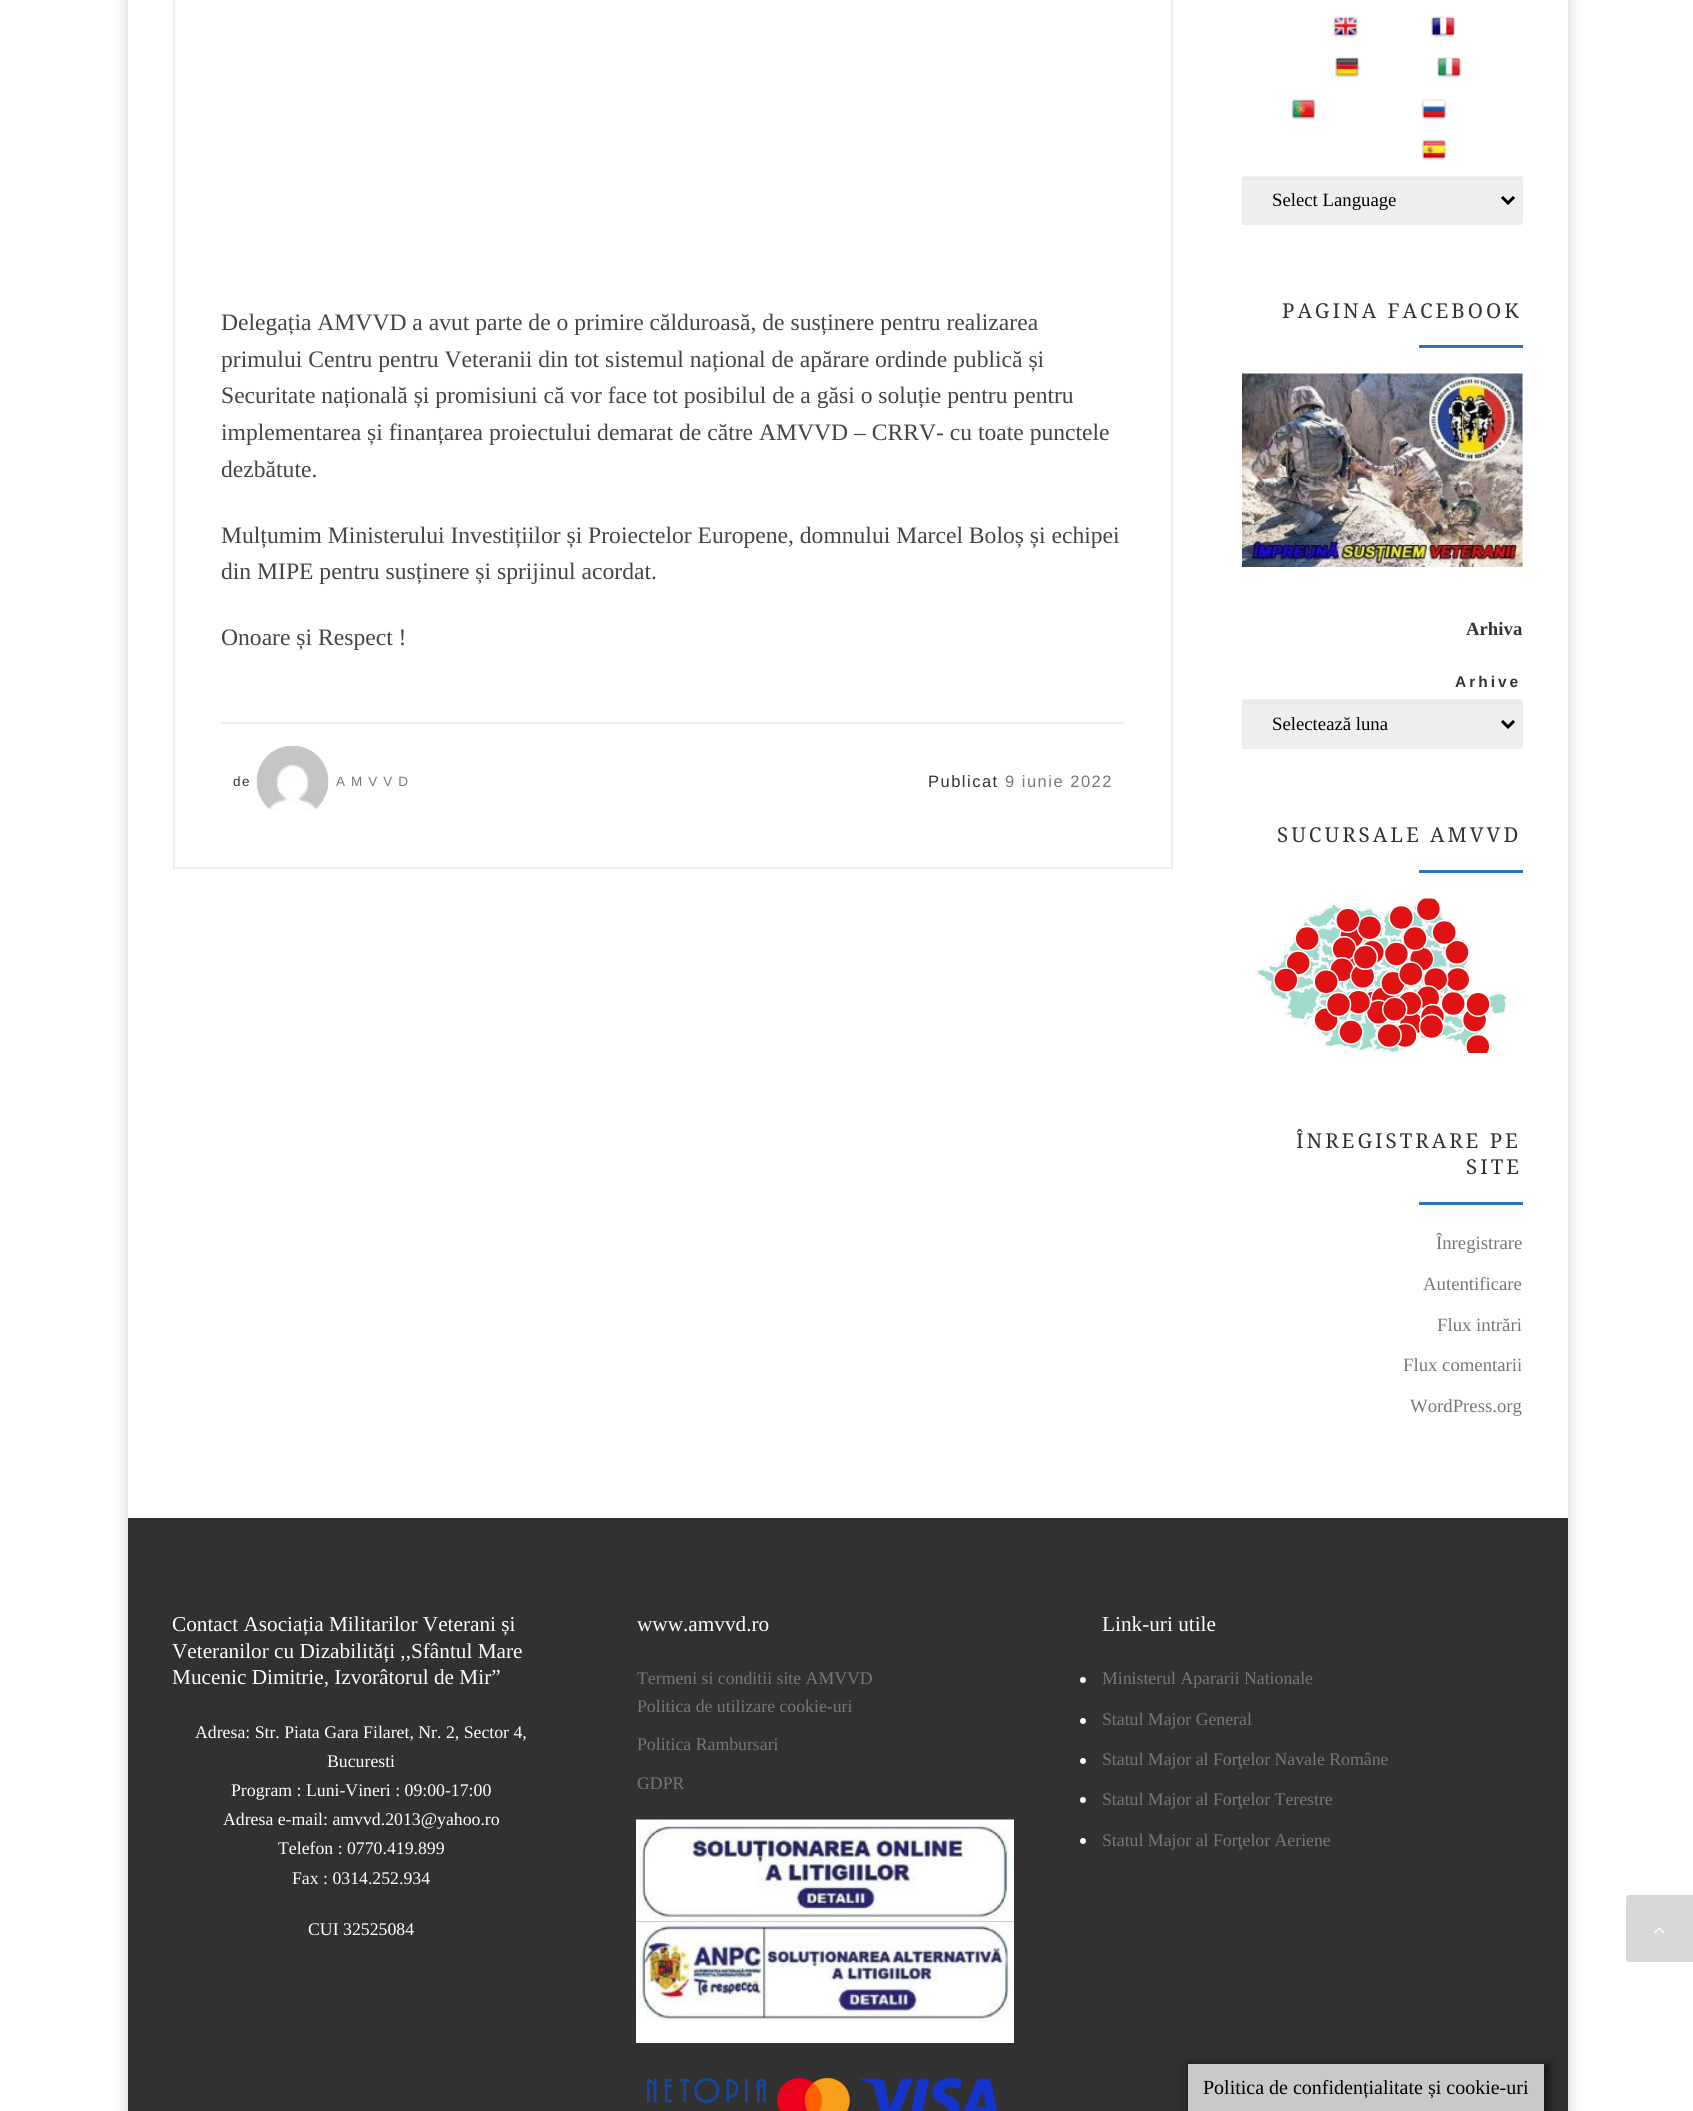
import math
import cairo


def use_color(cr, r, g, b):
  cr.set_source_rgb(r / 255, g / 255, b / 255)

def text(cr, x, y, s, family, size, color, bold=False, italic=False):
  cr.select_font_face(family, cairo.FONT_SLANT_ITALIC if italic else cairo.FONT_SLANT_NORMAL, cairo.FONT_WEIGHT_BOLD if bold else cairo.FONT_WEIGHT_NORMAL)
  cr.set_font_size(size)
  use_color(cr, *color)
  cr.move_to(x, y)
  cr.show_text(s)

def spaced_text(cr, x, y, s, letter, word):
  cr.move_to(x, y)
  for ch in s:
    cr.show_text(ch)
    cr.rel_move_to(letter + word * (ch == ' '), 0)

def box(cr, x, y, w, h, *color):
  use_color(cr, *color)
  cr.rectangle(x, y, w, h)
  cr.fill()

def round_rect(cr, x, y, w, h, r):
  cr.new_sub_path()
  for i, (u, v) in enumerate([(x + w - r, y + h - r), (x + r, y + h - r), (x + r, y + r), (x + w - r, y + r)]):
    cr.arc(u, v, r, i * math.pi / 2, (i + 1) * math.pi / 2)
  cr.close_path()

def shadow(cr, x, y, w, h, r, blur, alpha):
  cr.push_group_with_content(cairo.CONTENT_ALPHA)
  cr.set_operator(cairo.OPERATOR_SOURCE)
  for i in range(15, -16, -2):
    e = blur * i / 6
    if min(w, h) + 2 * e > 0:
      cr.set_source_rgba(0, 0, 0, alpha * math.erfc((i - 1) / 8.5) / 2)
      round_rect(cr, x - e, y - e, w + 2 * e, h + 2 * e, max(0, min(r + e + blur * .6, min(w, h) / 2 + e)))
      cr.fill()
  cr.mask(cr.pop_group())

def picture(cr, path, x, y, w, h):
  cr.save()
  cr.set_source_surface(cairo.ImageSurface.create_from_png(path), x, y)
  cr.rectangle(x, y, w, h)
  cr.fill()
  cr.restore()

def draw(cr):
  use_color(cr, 255, 255, 255)
  cr.paint()
  use_color(cr, 0, 0, 0)
  shadow(cr, 128, -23, 1440, 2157, 0, 7.5, 0.2)
  box(cr, 128, 0, 1440, 1518, 255, 255, 255)
  box(cr, 221, 722, 903, 2, 236, 238, 239)
  cr.rectangle(174, -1, 998, 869)
  use_color(cr, 239, 239, 239)
  cr.stroke()
  picture(cr, "img_01.png", 256, 745, 73, 68)
  picture(cr, "img_02.png", 1333, 16, 25, 22)
  picture(cr, "img_03.png", 1431, 16, 25, 22)
  picture(cr, "img_04.png", 1335, 57, 25, 21)
  picture(cr, "img_05.png", 1437, 57, 25, 21)
  picture(cr, "img_06.png", 1291, 99, 25, 21)
  picture(cr, "img_07.png", 1422, 99, 25, 21)
  picture(cr, "img_08.png", 1422, 139, 25, 22)
  round_rect(cr, 1242, 176, 281, 49, 3)
  cr.fill()
  use_color(cr, 233, 233, 233)
  cr.new_path()
  cr.move_to(1245, 180)
  cr.line_to(1520, 180)
  cr.line_to(1521, 182)
  cr.curve_to(1521, 181, 1522, 177, 1520, 177)
  cr.line_to(1246, 177)
  cr.curve_to(1243, 177, 1244, 181, 1244, 182)
  cr.curve_to(1244, 181, 1244, 180, 1245, 180)
  cr.close_path()
  cr.fill()
  round_rect(cr, 1243, 177, 279, 47, 2)
  use_color(cr, 236, 238, 239)
  cr.stroke()
  cr.new_path()
  cr.move_to(1502, 197)
  cr.line_to(1508, 203)
  cr.line_to(1514, 197)
  use_color(cr, 0, 0, 0)
  cr.set_line_width(3)
  cr.stroke()
  box(cr, 1419, 345, 104, 3, 38, 119, 191)
  picture(cr, "img_09.png", 1242, 373, 281, 194)
  use_color(cr, 239, 239, 239)
  round_rect(cr, 1242, 699, 281, 50, 3)
  cr.fill()
  use_color(cr, 233, 233, 233)
  cr.new_path()
  cr.move_to(1245, 704)
  cr.line_to(1520, 704)
  cr.line_to(1521, 705)
  cr.line_to(1521, 702)
  cr.curve_to(1521, 702, 1520, 701, 1520, 701)
  cr.line_to(1246, 701)
  cr.curve_to(1245, 701, 1244, 702, 1244, 702)
  cr.line_to(1244, 705)
  cr.curve_to(1244, 704, 1244, 704, 1245, 704)
  cr.close_path()
  cr.fill()
  round_rect(cr, 1243, 700, 279, 48, 2)
  use_color(cr, 236, 238, 239)
  cr.set_line_width(2)
  cr.stroke()
  cr.new_path()
  cr.move_to(1502, 721)
  cr.line_to(1508, 727)
  cr.line_to(1514, 721)
  use_color(cr, 0, 0, 0)
  cr.set_line_width(3)
  cr.stroke()
  box(cr, 1419, 870, 104, 3, 38, 119, 191)
  picture(cr, "img_10.png", 1254, 898, 256, 155)
  box(cr, 1419, 1202, 104, 3, 38, 119, 191)
  box(cr, 128, 1518, 1440, 593, 49, 49, 49)
  picture(cr, "img_11.png", 636, 1819, 378, 103)
  picture(cr, "img_12.png", 636, 1921, 378, 122)
  picture(cr, "img_13.png", 647, 2078, 351, 33)
  use_color(cr, 255, 255, 255)
  cr.arc(1083, 1680, 3, 0, 2 * math.pi)
  cr.fill()
  cr.arc(1083, 1721, 3, 0, 2 * math.pi)
  cr.fill()
  cr.arc(1083, 1761, 3, 0, 2 * math.pi)
  cr.fill()
  cr.arc(1083, 1800, 3, 0, 2 * math.pi)
  cr.fill()
  cr.arc(1083, 1841, 3, 0, 2 * math.pi)
  cr.fill()
  use_color(cr, 216, 216, 216)
  round_rect(cr, 1626, 1895, 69, 67, 3)
  cr.fill()
  picture(cr, "img_14.png", 1654, 1927, 11, 7)
  use_color(cr, 22, 22, 22)
  shadow(cr, 1188, 2064, 362, 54, 0, 4, 1)
  box(cr, 1188, 2064, 356, 47, 201, 201, 201)
  text(cr, 221, 330, "Delegația AMVVD a avut parte de o primire călduroasă, de susținere pentru realizarea", "Liberation Serif", 23.6, (68, 68, 68))
  text(cr, 221, 367, "primului Centru pentru Veteranii din tot sistemul național de apărare ordinde publică și", "Liberation Serif", 23.6, (68, 68, 68))
  text(cr, 221, 403, "Securitate națională și promisiuni că vor face tot posibilul de a găsi o soluție pentru pentru", "Liberation Serif", 23.6, (68, 68, 68))
  text(cr, 221, 440, "implementarea și finanțarea proiectului demarat de către AMVVD – CRRV- cu toate punctele", "Liberation Serif", 23.6, (68, 68, 68))
  text(cr, 221, 477, "dezbătute.", "Liberation Serif", 23.6, (68, 68, 68))
  text(cr, 221, 543, "Mulțumim Ministerului Investițiilor și Proiectelor Europene, domnului Marcel Boloș și echipei", "Liberation Serif", 23.6, (68, 68, 68))
  text(cr, 221, 579, "din MIPE pentru susținere și sprijinul acordat.", "Liberation Serif", 23.6, (68, 68, 68))
  text(cr, 221, 645, "Onoare și Respect !", "Liberation Serif", 23.6, (68, 68, 68))
  cr.select_font_face("Liberation Sans")
  cr.set_font_size(13.5)
  use_color(cr, 51, 51, 51)
  spaced_text(cr, 233, 786, "de", 1.5, 0)
  use_color(cr, 119, 119, 119)
  spaced_text(cr, 336, 786, "AMVVD", 6, 0)
  cr.set_font_size(16.5)
  use_color(cr, 51, 51, 51)
  spaced_text(cr, 928, 787, "Publicat", 1.5, 0)
  use_color(cr, 119, 119, 119)
  spaced_text(cr, 1005, 787, "9 iunie 2022", 1.5, 0)
  text(cr, 1272, 206, "Select Language", "Liberation Serif", 18.75, (0, 0, 0))
  cr.select_font_face("Noto Serif")
  cr.set_font_size(20.5)
  use_color(cr, 51, 51, 51)
  spaced_text(cr, 1282, 318, "PAGINA FACEBOOK", 3, 0)
  text(cr, 1466, 635, "Arhiva", "Liberation Serif", 18.75, (51, 51, 51), bold=True)
  cr.select_font_face("Liberation Sans", cairo.FONT_SLANT_NORMAL, cairo.FONT_WEIGHT_BOLD)
  cr.set_font_size(15.5)
  spaced_text(cr, 1455, 687, "Arhive", 3, 0)
  text(cr, 1272, 730, "Selectează luna", "Liberation Serif", 18.75, (0, 0, 0))
  cr.select_font_face("Noto Serif")
  cr.set_font_size(20.5)
  use_color(cr, 51, 51, 51)
  spaced_text(cr, 1277, 842, "SUCURSALE AMVVD", 3, 0)
  spaced_text(cr, 1296, 1148, "ÎNREGISTRARE PE", 3, 0)
  spaced_text(cr, 1466, 1174, "SITE", 3, 0)
  text(cr, 1436, 1249, "Înregistrare", "Liberation Serif", 18.75, (119, 119, 119))
  text(cr, 1423, 1290, "Autentificare", "Liberation Serif", 18.75, (119, 119, 119))
  text(cr, 1437, 1331, "Flux intrări", "Liberation Serif", 18.75, (119, 119, 119))
  text(cr, 1403, 1371, "Flux comentarii", "Liberation Serif", 18.75, (119, 119, 119))
  text(cr, 1410, 1412, "WordPress.org", "Liberation Serif", 18.75, (119, 119, 119))
  text(cr, 172, 1631, "Contact Asociația Militarilor Veterani și", "Liberation Serif", 21.25, (255, 255, 255))
  text(cr, 172, 1658, "Veteranilor cu Dizabilități ,,Sfântul Mare", "Liberation Serif", 21.25, (255, 255, 255))
  text(cr, 172, 1684, "Mucenic Dimitrie, Izvorâtorul de Mir”", "Liberation Serif", 21.25, (255, 255, 255))
  text(cr, 195, 1738, "Adresa: Str. Piata Gara Filaret, Nr. 2, Sector 4,", "Liberation Serif", 17.75, (255, 255, 255))
  text(cr, 327, 1767, "Bucuresti", "Liberation Serif", 17.75, (255, 255, 255))
  text(cr, 231, 1796, "Program : Luni-Vineri : 09:00-17:00", "Liberation Serif", 17.75, (255, 255, 255))
  text(cr, 223, 1825, "Adresa e-mail: amvvd.2013@yahoo.ro", "Liberation Serif", 17.75, (255, 255, 255))
  text(cr, 278, 1854, "Telefon : 0770.419.899", "Liberation Serif", 17.75, (255, 255, 255))
  text(cr, 292, 1884, "Fax : 0314.252.934", "Liberation Serif", 17.75, (255, 255, 255))
  text(cr, 308, 1935, "CUI 32525084", "Liberation Serif", 17.75, (255, 255, 255))
  text(cr, 637, 1631, "www.amvvd.ro", "Liberation Serif", 21.25, (255, 255, 255))
  text(cr, 637, 1684, "Termeni si conditii site AMVVD", "Liberation Serif", 17.75, (119, 119, 119))
  text(cr, 637, 1712, "Politica de utilizare cookie-uri", "Liberation Serif", 17.75, (119, 119, 119))
  text(cr, 637, 1750, "Politica Rambursari", "Liberation Serif", 17.75, (119, 119, 119))
  text(cr, 637, 1789, "GDPR", "Liberation Serif", 17.75, (119, 119, 119))
  text(cr, 1102, 1631, "Link-uri utile", "Liberation Serif", 21.25, (255, 255, 255))
  text(cr, 1102, 1684, "Ministerul Apararii Nationale", "Liberation Serif", 17.75, (119, 119, 119))
  text(cr, 1102, 1725, "Statul Major General", "Liberation Serif", 17.75, (119, 119, 119))
  text(cr, 1102, 1765, "Statul Major al Forţelor Navale Române", "Liberation Serif", 17.75, (119, 119, 119))
  text(cr, 1102, 1805, "Statul Major al Forţelor Terestre", "Liberation Serif", 17.75, (119, 119, 119))
  text(cr, 1102, 1846, "Statul Major al Forţelor Aeriene", "Liberation Serif", 17.75, (119, 119, 119))
  text(cr, 1203, 2094, "Politica de confidențialitate și cookie-uri", "Liberation Serif", 20, (0, 0, 0))


surface = cairo.ImageSurface(cairo.FORMAT_RGB24, 1693, 2111)
cr = cairo.Context(surface)
options = cairo.FontOptions()
options.set_hint_metrics(cairo.HINT_METRICS_OFF)
options.set_hint_style(cairo.HINT_STYLE_NONE)
cr.set_font_options(options)
cr.set_miter_limit(4)
draw(cr)
surface.write_to_png("out.png")
